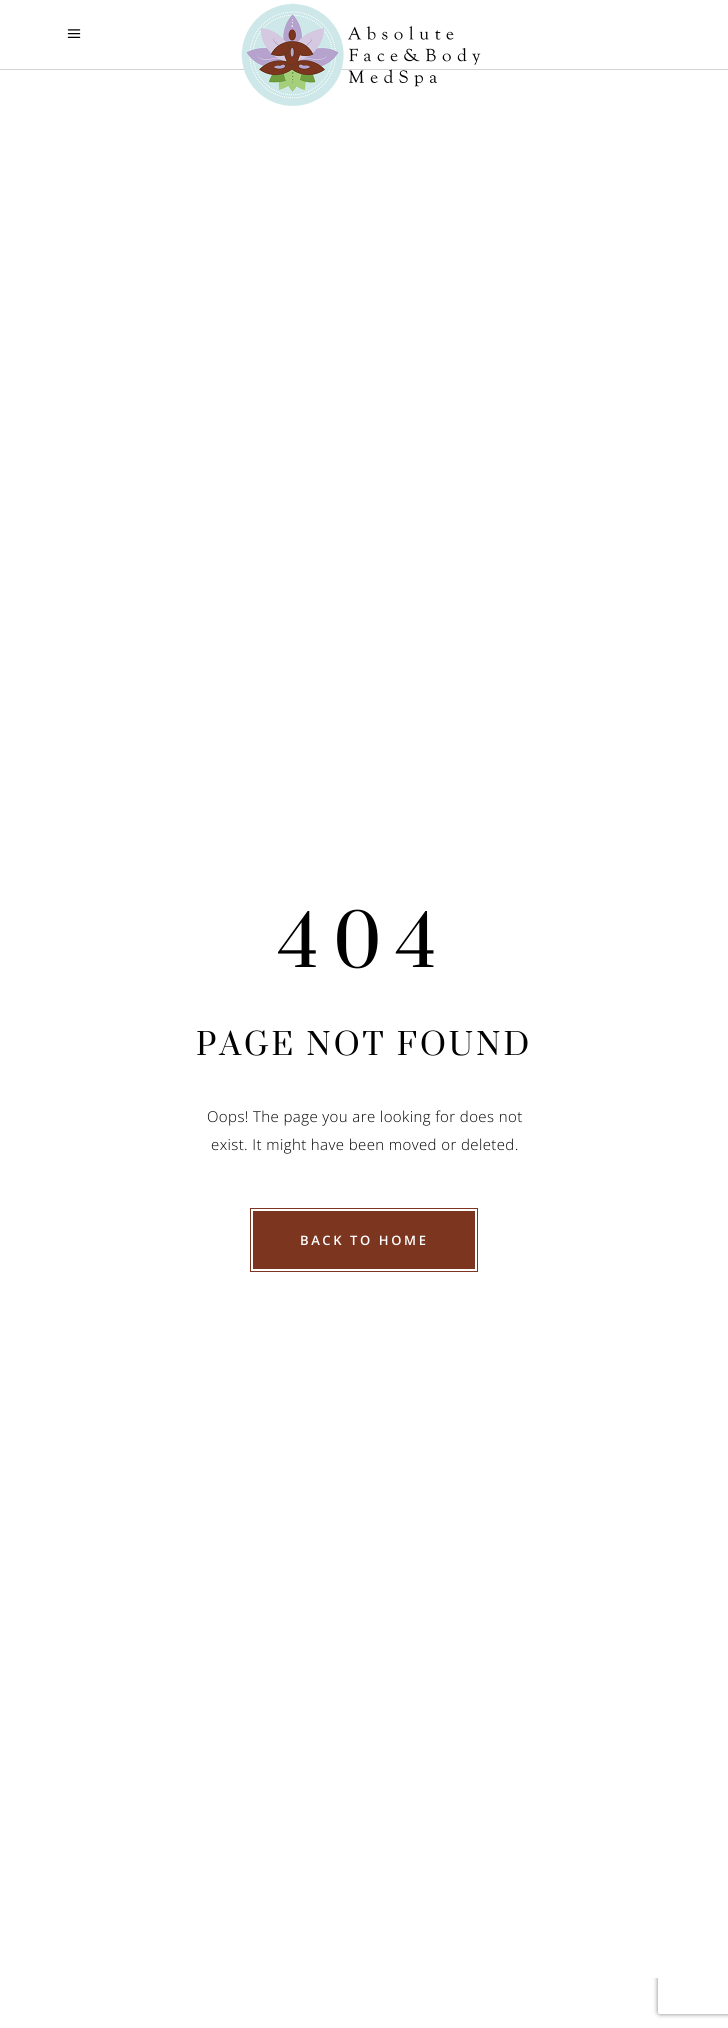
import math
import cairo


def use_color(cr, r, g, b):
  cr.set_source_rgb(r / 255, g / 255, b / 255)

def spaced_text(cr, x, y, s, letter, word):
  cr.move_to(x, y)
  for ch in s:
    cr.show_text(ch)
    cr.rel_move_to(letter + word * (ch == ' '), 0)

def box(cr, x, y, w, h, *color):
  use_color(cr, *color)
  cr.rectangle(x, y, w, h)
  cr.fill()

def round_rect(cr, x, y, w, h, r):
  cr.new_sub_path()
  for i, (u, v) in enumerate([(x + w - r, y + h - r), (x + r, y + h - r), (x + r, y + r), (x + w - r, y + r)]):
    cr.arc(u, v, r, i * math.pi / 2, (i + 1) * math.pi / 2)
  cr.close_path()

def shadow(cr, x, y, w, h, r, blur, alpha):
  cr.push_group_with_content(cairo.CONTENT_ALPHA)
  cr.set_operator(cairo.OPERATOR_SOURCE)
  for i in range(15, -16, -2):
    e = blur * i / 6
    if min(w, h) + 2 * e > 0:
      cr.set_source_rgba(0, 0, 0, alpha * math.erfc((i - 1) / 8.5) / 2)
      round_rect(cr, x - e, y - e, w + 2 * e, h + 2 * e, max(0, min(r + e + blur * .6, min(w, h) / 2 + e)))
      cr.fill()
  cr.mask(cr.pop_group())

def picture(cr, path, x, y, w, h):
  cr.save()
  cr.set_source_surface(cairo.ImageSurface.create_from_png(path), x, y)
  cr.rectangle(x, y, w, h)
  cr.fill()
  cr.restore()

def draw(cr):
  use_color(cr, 255, 255, 255)
  cr.paint()
  box(cr, 0, 69, 728, 1, 209, 211, 212)
  picture(cr, "img_01.png", 67, 29, 14, 9)
  picture(cr, "img_02.png", 241, 3, 240, 103)
  cr.save()
  cr.set_fill_rule(cairo.FILL_RULE_EVEN_ODD)
  cr.new_path()
  cr.move_to(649, 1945)
  cr.line_to(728, 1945)
  cr.line_to(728, 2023)
  cr.line_to(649, 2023)
  cr.close_path()
  cr.move_to(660, 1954)
  cr.line_to(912, 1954)
  cr.curve_to(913, 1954, 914, 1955, 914, 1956)
  cr.line_to(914, 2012)
  cr.curve_to(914, 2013, 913, 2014, 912, 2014)
  cr.line_to(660, 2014)
  cr.curve_to(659, 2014, 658, 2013, 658, 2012)
  cr.line_to(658, 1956)
  cr.curve_to(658, 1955, 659, 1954, 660, 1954)
  cr.close_path()
  cr.clip()
  use_color(cr, 128, 128, 128)
  shadow(cr, 658, 1954, 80, 60, 2, 2.5, 1)
  cr.restore()
  box(cr, 653, 1949, 75, 29, 255, 255, 255)
  box(cr, 253, 1211, 222, 58, 124, 53, 31)
  box(cr, 250, 1208, 228, 1, 124, 53, 31)
  box(cr, 477, 1208, 1, 64, 124, 53, 31)
  box(cr, 250, 1271, 228, 1, 124, 53, 31)
  box(cr, 250, 1208, 1, 64, 124, 53, 31)
  cr.select_font_face("Prata")
  cr.set_font_size(70)
  use_color(cr, 0, 0, 0)
  spaced_text(cr, 278, 967, "404", 14, 0)
  cr.set_font_size(30)
  spaced_text(cr, 196, 1055, "PAGE NOT FOUND", 3, 0)
  cr.select_font_face("Open Sans Light")
  cr.set_font_size(15)
  spaced_text(cr, 207, 1122, "Oops! The page you are looking for does not", 0.4, 0)
  spaced_text(cr, 211, 1150, "exist. It might have been moved or deleted.", 0.4, 0)
  cr.select_font_face("Open Sans SemiBold")
  cr.set_font_size(13)
  use_color(cr, 255, 255, 255)
  spaced_text(cr, 300, 1245, "BACK TO HOME", 2.6, 0)


surface = cairo.ImageSurface(cairo.FORMAT_RGB24, 728, 2028)
cr = cairo.Context(surface)
options = cairo.FontOptions()
options.set_hint_metrics(cairo.HINT_METRICS_OFF)
options.set_hint_style(cairo.HINT_STYLE_NONE)
cr.set_font_options(options)
cr.set_miter_limit(4)
draw(cr)
surface.write_to_png("out.png")
